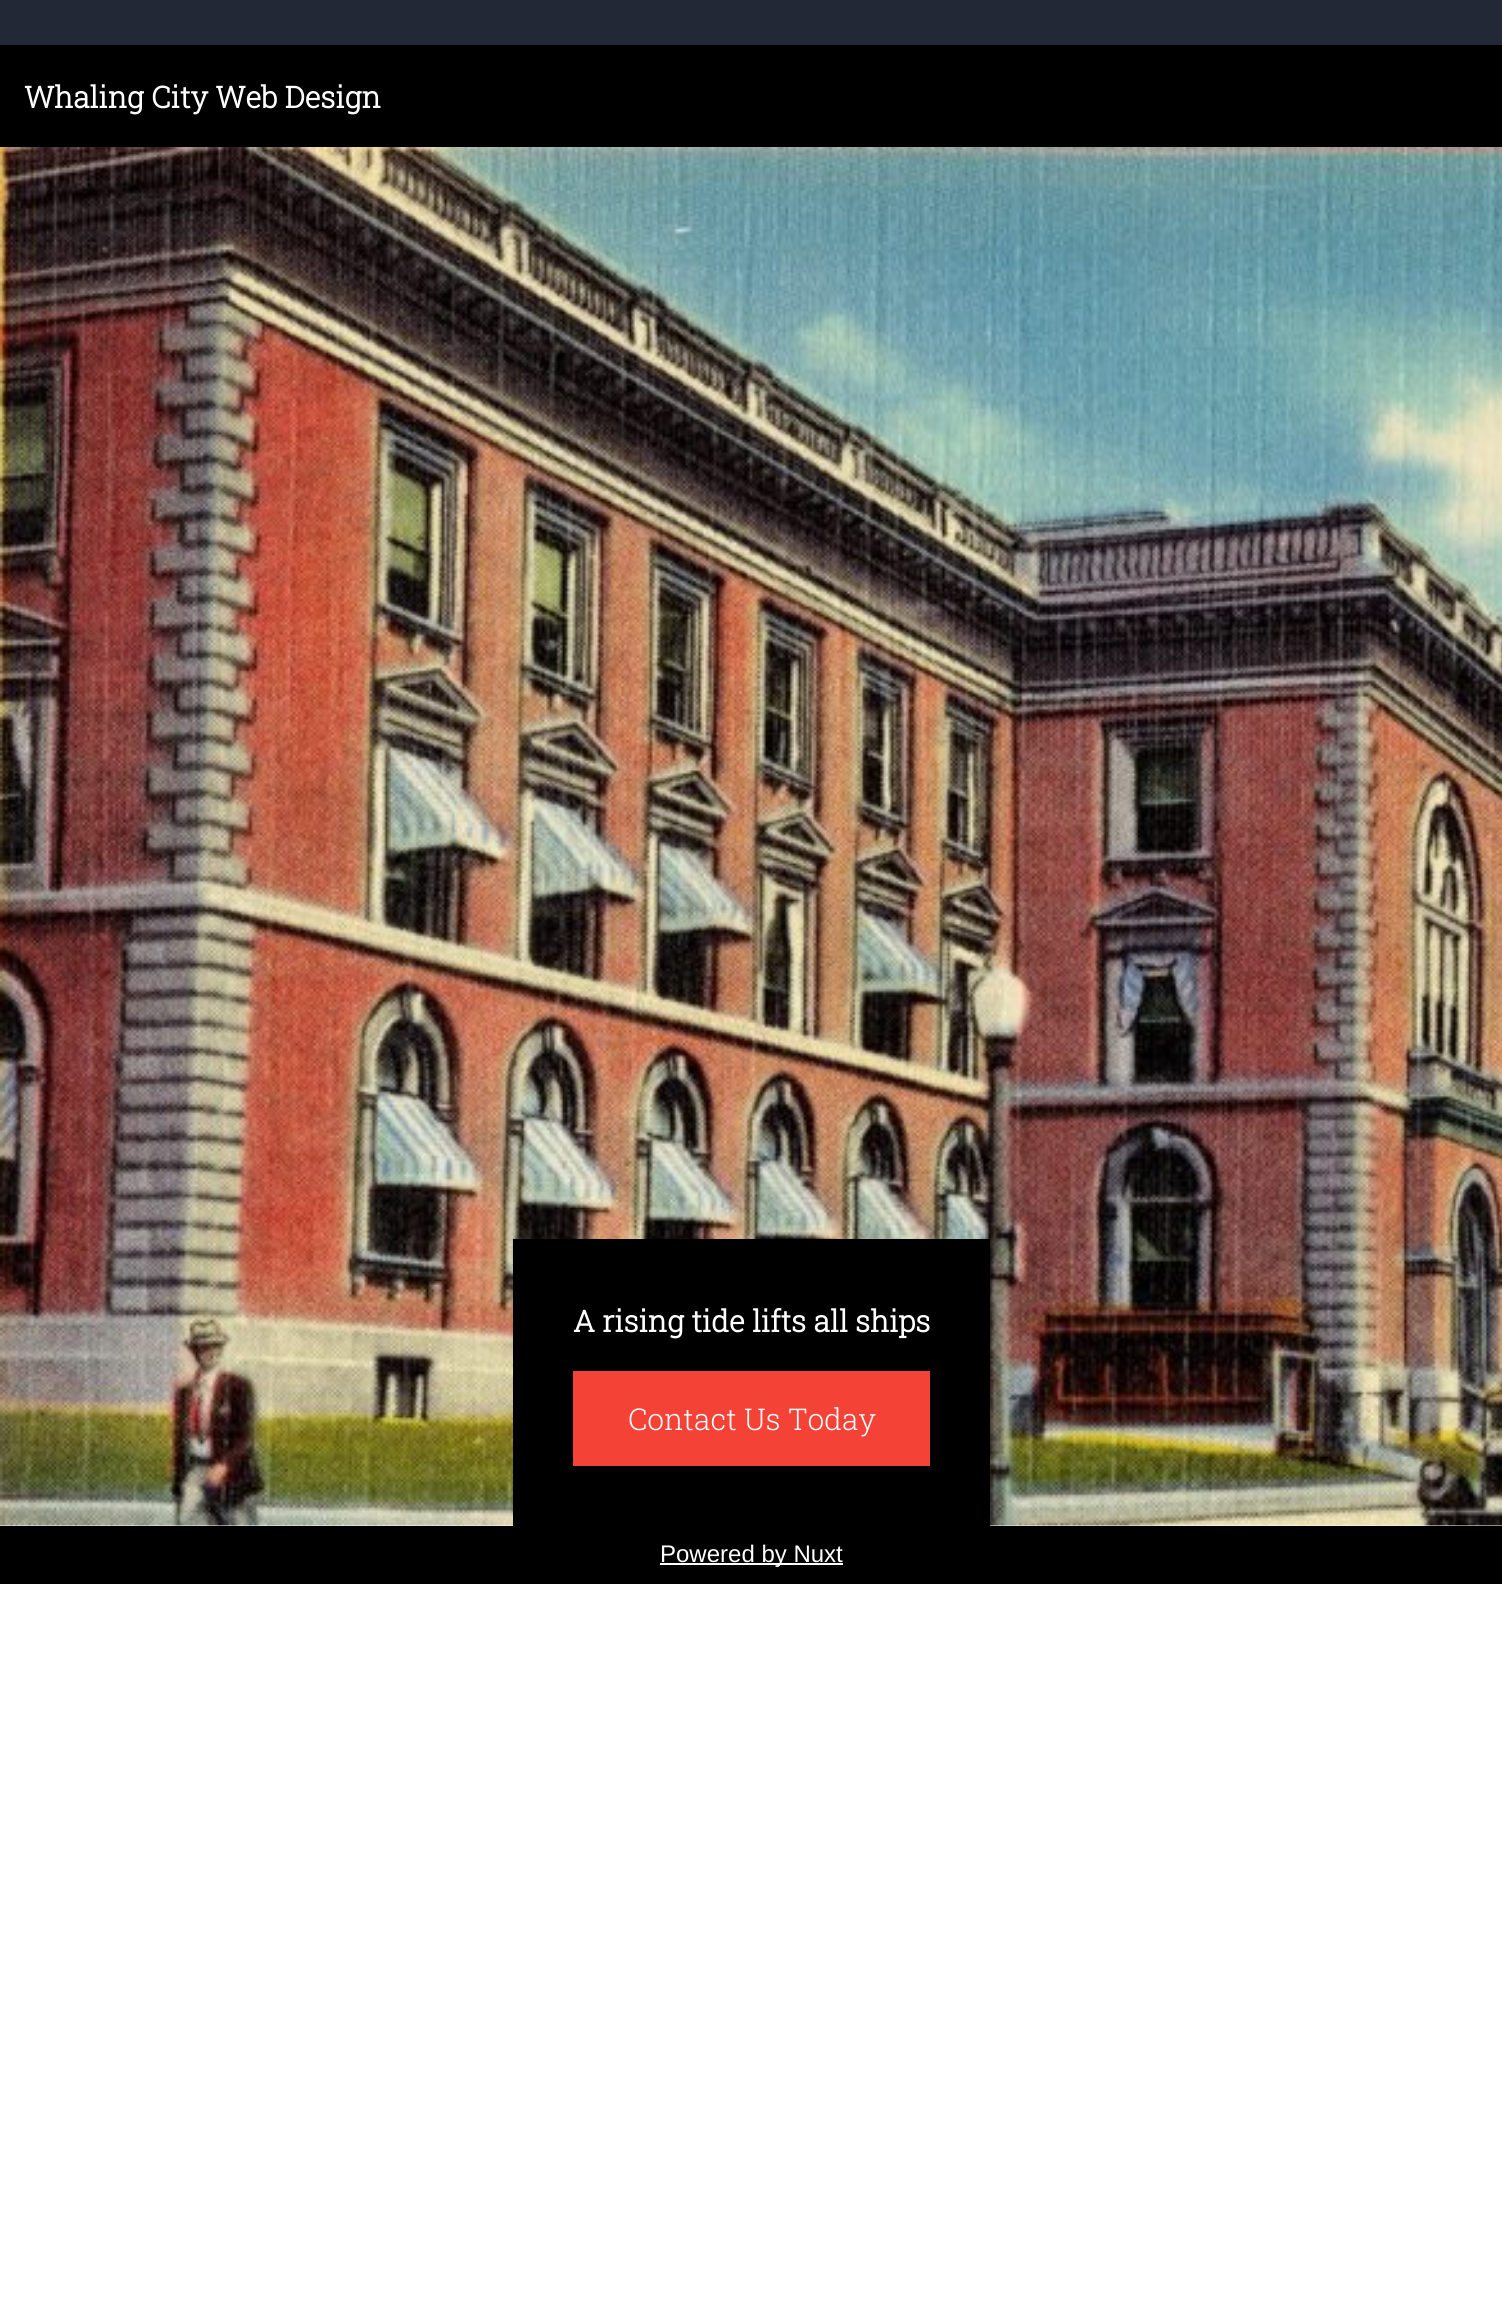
import math
import cairo


def use_color(cr, r, g, b):
  cr.set_source_rgb(r / 255, g / 255, b / 255)

def text(cr, x, y, s, family, size, color, bold=False, italic=False):
  cr.select_font_face(family, cairo.FONT_SLANT_ITALIC if italic else cairo.FONT_SLANT_NORMAL, cairo.FONT_WEIGHT_BOLD if bold else cairo.FONT_WEIGHT_NORMAL)
  cr.set_font_size(size)
  use_color(cr, *color)
  cr.move_to(x, y)
  cr.show_text(s)

def box(cr, x, y, w, h, *color):
  use_color(cr, *color)
  cr.rectangle(x, y, w, h)
  cr.fill()

def picture(cr, path, x, y, w, h):
  cr.save()
  cr.set_source_surface(cairo.ImageSurface.create_from_png(path), x, y)
  cr.rectangle(x, y, w, h)
  cr.fill()
  cr.restore()

def draw(cr):
  use_color(cr, 255, 255, 255)
  cr.paint()
  box(cr, 0, 0, 1502, 45, 35, 40, 55)
  box(cr, 0, 45, 1502, 102, 0, 0, 0)
  picture(cr, "img_01.png", 0, 147, 1502, 1379)
  box(cr, 513, 1239, 477, 287, 0, 0, 0)
  box(cr, 573, 1371, 357, 95, 244, 67, 54)
  box(cr, 0, 1526, 1502, 58, 0, 0, 0)
  box(cr, 660, 1563, 183, 2, 255, 255, 255)
  text(cr, 24, 108, "Whaling City Web Design", "Roboto Slab", 30, (255, 255, 255), bold=True)
  text(cr, 573, 1332, "A rising tide lifts all ships", "Roboto Slab", 30, (255, 255, 255), bold=True)
  text(cr, 628, 1430, "Contact Us Today", "Roboto Slab Light", 30, (255, 255, 255))
  text(cr, 660, 1562, "Powered by Nuxt", "Liberation Sans", 24, (255, 255, 255))


surface = cairo.ImageSurface(cairo.FORMAT_RGB24, 1502, 2297)
cr = cairo.Context(surface)
options = cairo.FontOptions()
options.set_hint_metrics(cairo.HINT_METRICS_OFF)
options.set_hint_style(cairo.HINT_STYLE_NONE)
cr.set_font_options(options)
cr.set_miter_limit(4)
draw(cr)
surface.write_to_png("out.png")
